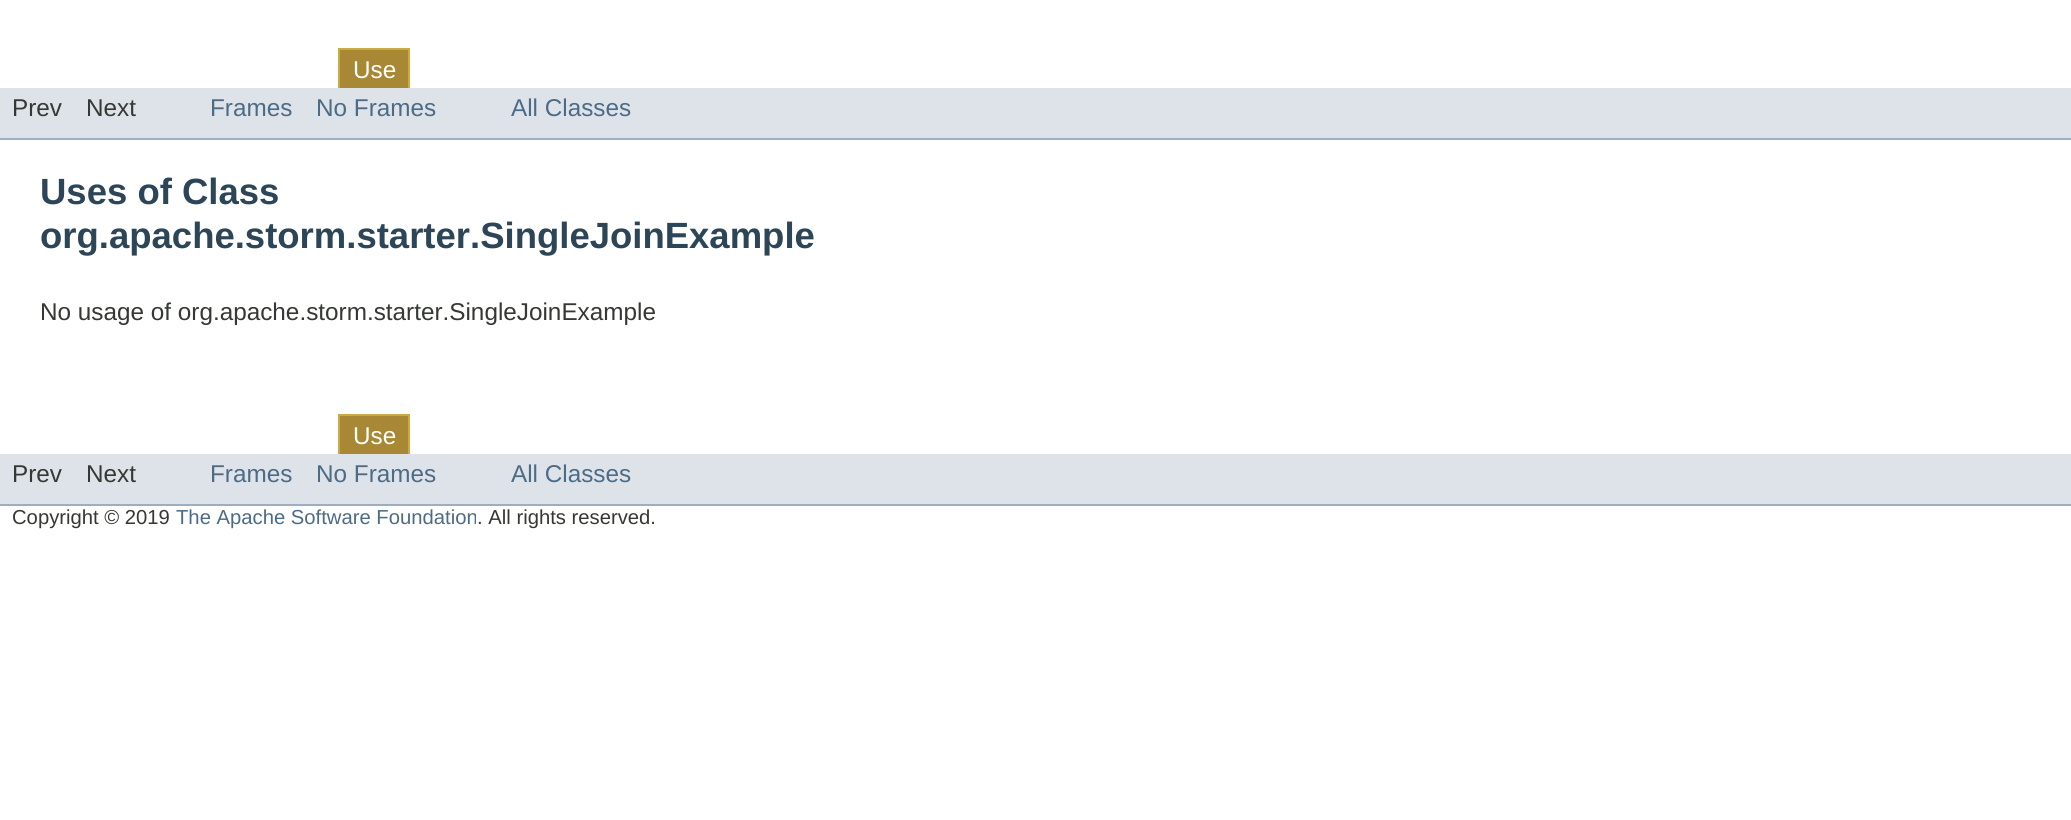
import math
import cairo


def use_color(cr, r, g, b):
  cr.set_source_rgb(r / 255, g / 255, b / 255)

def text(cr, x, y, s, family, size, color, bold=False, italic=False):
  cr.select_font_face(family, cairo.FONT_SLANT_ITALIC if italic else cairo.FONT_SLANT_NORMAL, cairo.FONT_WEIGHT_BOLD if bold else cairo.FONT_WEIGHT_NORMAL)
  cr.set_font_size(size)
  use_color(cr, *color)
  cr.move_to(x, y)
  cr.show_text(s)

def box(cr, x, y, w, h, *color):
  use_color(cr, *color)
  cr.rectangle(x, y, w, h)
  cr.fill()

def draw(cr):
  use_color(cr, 255, 255, 255)
  cr.paint()
  box(cr, 340, 50, 68, 38, 168, 136, 52)
  cr.rectangle(339, 49, 70, 42)
  use_color(cr, 201, 170, 68)
  cr.stroke()
  box(cr, 0, 88, 2071, 50, 222, 227, 233)
  box(cr, 0, 138, 2071, 2, 158, 173, 192)
  box(cr, 340, 416, 68, 38, 168, 136, 52)
  cr.rectangle(339, 415, 70, 42)
  use_color(cr, 201, 170, 68)
  cr.stroke()
  box(cr, 0, 454, 2071, 50, 222, 227, 233)
  box(cr, 0, 504, 2071, 2, 158, 173, 192)
  text(cr, 353, 78, "Use", "Liberation Sans", 24.3, (255, 255, 255))
  text(cr, 12, 116, "Prev", "Liberation Sans", 24.3, (53, 56, 51))
  text(cr, 86, 116, "Next", "Liberation Sans", 24.3, (53, 56, 51))
  text(cr, 210, 116, "Frames", "Liberation Sans", 24.3, (76, 107, 135))
  text(cr, 316, 116, "No Frames", "Liberation Sans", 24.3, (76, 107, 135))
  text(cr, 511, 116, "All Classes", "Liberation Sans", 24.3, (76, 107, 135))
  text(cr, 40, 204, "Uses of Class", "Liberation Sans", 36.5, (44, 69, 87), bold=True)
  text(cr, 40, 248, "org.apache.storm.starter.SingleJoinExample", "Liberation Sans", 36.5, (44, 69, 87), bold=True)
  text(cr, 40, 320, "No usage of org.apache.storm.starter.SingleJoinExample", "Liberation Sans", 24.3, (53, 56, 51))
  text(cr, 353, 444, "Use", "Liberation Sans", 24.3, (255, 255, 255))
  text(cr, 12, 482, "Prev", "Liberation Sans", 24.3, (53, 56, 51))
  text(cr, 86, 482, "Next", "Liberation Sans", 24.3, (53, 56, 51))
  text(cr, 210, 482, "Frames", "Liberation Sans", 24.3, (76, 107, 135))
  text(cr, 316, 482, "No Frames", "Liberation Sans", 24.3, (76, 107, 135))
  text(cr, 511, 482, "All Classes", "Liberation Sans", 24.3, (76, 107, 135))
  text(cr, 12, 524, "Copyright © 2019", "Liberation Sans", 20.25, (53, 56, 51))
  text(cr, 176, 524, "The Apache Software Foundation", "Liberation Sans", 20.25, (76, 107, 135))
  text(cr, 477, 524, ". All rights reserved.", "Liberation Sans", 20.25, (53, 56, 51))


surface = cairo.ImageSurface(cairo.FORMAT_RGB24, 2071, 820)
cr = cairo.Context(surface)
options = cairo.FontOptions()
options.set_hint_metrics(cairo.HINT_METRICS_OFF)
options.set_hint_style(cairo.HINT_STYLE_NONE)
cr.set_font_options(options)
cr.set_miter_limit(4)
draw(cr)
surface.write_to_png("out.png")
